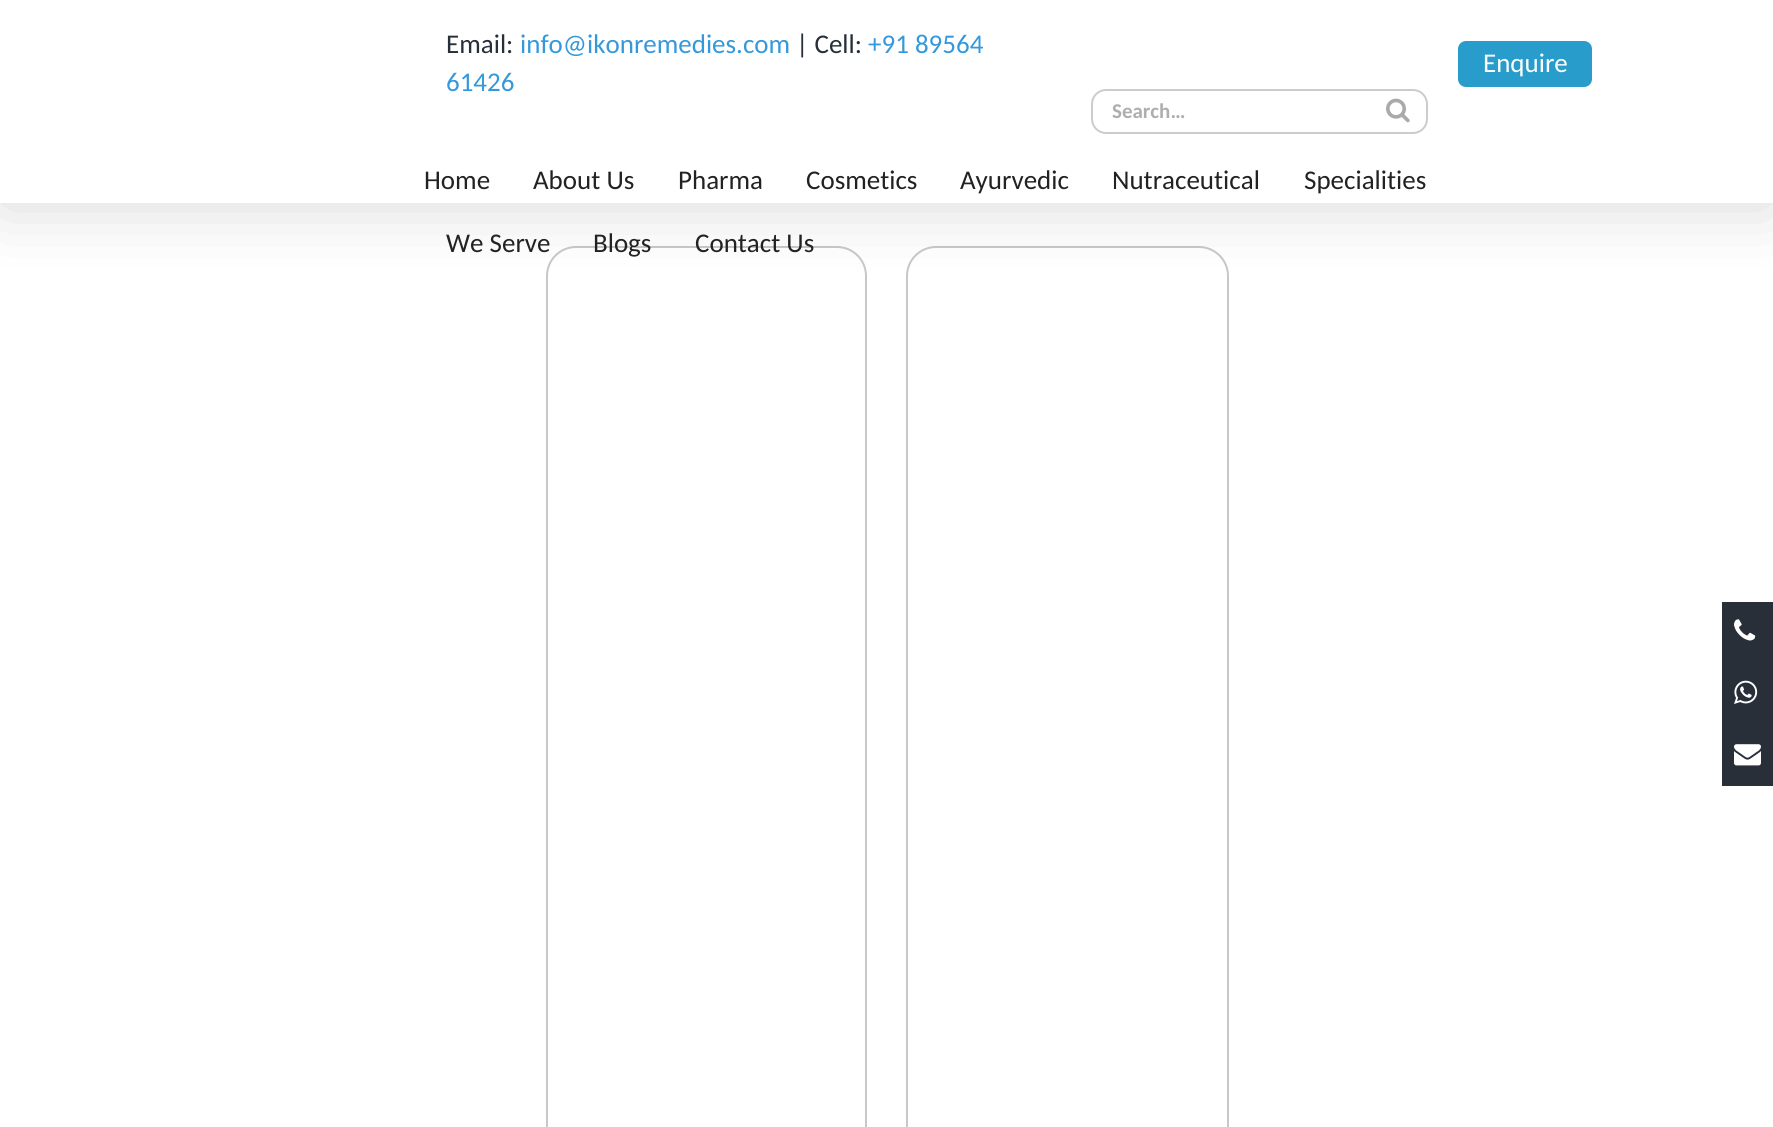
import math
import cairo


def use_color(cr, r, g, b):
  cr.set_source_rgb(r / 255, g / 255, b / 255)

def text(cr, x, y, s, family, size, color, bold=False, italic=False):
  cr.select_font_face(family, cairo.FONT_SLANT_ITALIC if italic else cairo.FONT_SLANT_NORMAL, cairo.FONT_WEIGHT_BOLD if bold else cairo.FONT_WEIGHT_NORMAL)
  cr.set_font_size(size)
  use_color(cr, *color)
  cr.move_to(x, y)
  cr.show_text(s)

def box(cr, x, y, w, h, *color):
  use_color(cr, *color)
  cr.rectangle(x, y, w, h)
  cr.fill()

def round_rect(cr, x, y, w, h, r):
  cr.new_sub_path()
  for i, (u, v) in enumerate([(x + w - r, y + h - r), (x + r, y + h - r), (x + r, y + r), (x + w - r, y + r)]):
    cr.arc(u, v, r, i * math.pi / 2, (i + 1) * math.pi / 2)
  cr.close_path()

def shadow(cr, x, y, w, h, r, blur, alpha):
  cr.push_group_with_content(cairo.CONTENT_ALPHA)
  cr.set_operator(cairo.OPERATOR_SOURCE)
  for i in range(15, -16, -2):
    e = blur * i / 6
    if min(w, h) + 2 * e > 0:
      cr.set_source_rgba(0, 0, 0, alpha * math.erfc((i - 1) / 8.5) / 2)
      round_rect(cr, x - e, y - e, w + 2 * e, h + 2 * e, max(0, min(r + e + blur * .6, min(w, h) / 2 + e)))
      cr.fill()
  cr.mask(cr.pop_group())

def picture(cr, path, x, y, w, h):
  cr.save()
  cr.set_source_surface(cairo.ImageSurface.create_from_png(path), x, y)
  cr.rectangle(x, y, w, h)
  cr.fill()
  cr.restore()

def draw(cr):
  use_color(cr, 255, 255, 255)
  cr.paint()
  round_rect(cr, 547, 247, 319, 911, 29)
  use_color(cr, 200, 200, 200)
  cr.stroke()
  round_rect(cr, 907, 247, 321, 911, 29)
  cr.stroke()
  use_color(cr, 0, 0, 0)
  shadow(cr, 0, 5, 1773, 202, 0, 34, 0.15)
  box(cr, 0, 0, 1773, 203, 255, 255, 255)
  use_color(cr, 40, 157, 204)
  round_rect(cr, 1459, 42, 132, 44, 7)
  cr.fill_preserve()
  cr.stroke()
  round_rect(cr, 1092, 90, 335, 43, 14)
  use_color(cr, 204, 204, 204)
  cr.stroke()
  picture(cr, "img_01.png", 1386, 98, 24, 25)
  box(cr, 1722, 602, 51, 184, 40, 47, 57)
  picture(cr, "img_02.png", 1734, 619, 22, 22)
  picture(cr, "img_03.png", 1734, 680, 24, 24)
  picture(cr, "img_04.png", 1734, 744, 27, 22)
  text(cr, 446, 53, "Email:", "Carlito", 27, (40, 47, 57))
  text(cr, 520, 53, "info@ikonremedies.com", "Carlito", 27, (52, 152, 219))
  text(cr, 796, 53, "| Cell:", "Carlito", 27, (40, 47, 57))
  text(cr, 868, 53, "+91 89564", "Carlito", 27, (52, 152, 219))
  text(cr, 446, 91, "61426", "Carlito", 27, (52, 152, 219))
  text(cr, 1483, 72, "Enquire", "Carlito", 27, (255, 255, 255))
  text(cr, 1112, 118, "Search…", "Carlito", 21, (174, 174, 174), bold=True)
  text(cr, 424, 189, "Home", "Carlito", 27, (34, 34, 34))
  text(cr, 533, 189, "About Us", "Carlito", 27, (34, 34, 34))
  text(cr, 678, 189, "Pharma", "Carlito", 27, (34, 34, 34))
  text(cr, 806, 189, "Cosmetics", "Carlito", 27, (34, 34, 34))
  text(cr, 960, 189, "Ayurvedic", "Carlito", 27, (34, 34, 34))
  text(cr, 1112, 189, "Nutraceutical", "Carlito", 27, (34, 34, 34))
  text(cr, 1304, 189, "Specialities", "Carlito", 27, (34, 34, 34))
  text(cr, 446, 252, "We Serve", "Carlito", 27, (34, 34, 34))
  text(cr, 593, 252, "Blogs", "Carlito", 27, (34, 34, 34))
  text(cr, 695, 252, "Contact Us", "Carlito", 27, (34, 34, 34))


surface = cairo.ImageSurface(cairo.FORMAT_RGB24, 1773, 1127)
cr = cairo.Context(surface)
options = cairo.FontOptions()
options.set_hint_metrics(cairo.HINT_METRICS_OFF)
options.set_hint_style(cairo.HINT_STYLE_NONE)
cr.set_font_options(options)
cr.set_miter_limit(4)
draw(cr)
surface.write_to_png("out.png")
